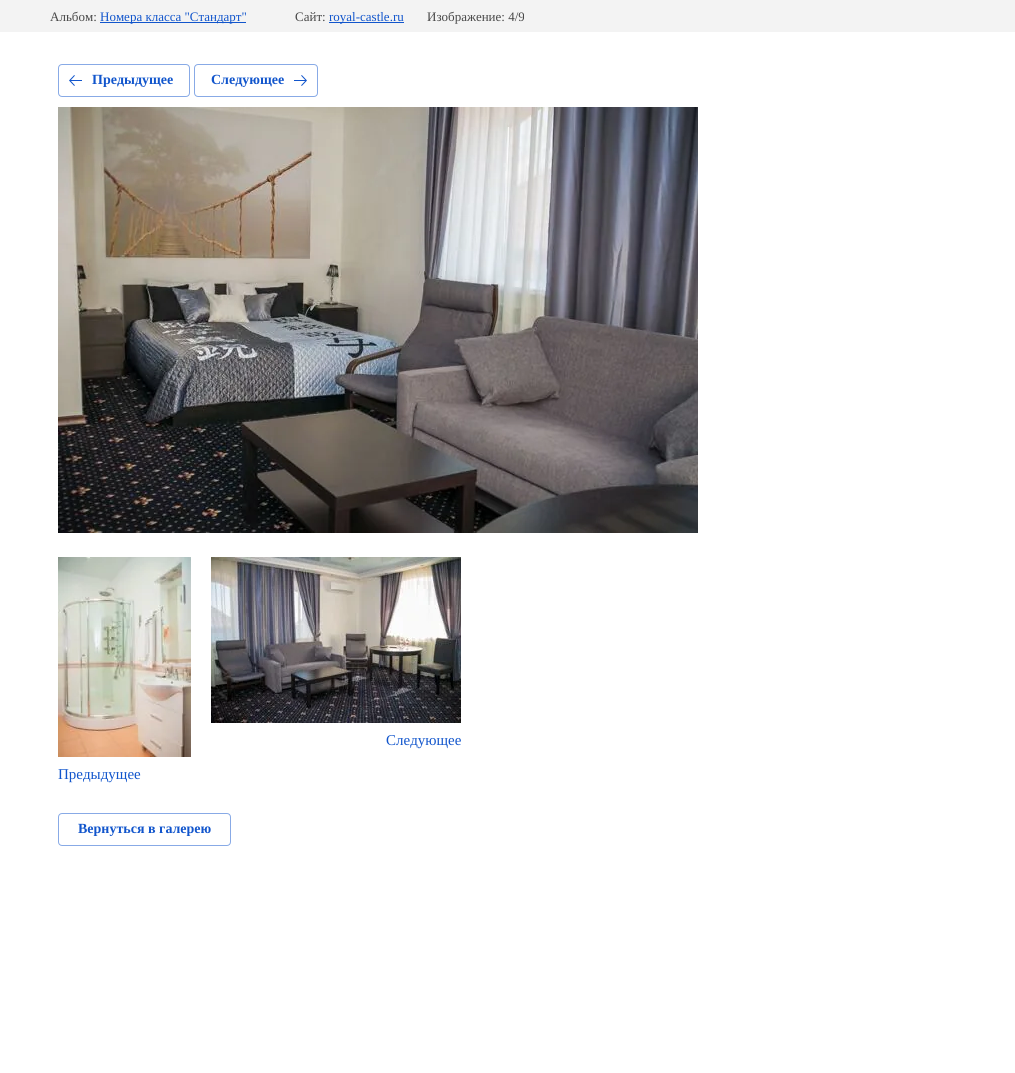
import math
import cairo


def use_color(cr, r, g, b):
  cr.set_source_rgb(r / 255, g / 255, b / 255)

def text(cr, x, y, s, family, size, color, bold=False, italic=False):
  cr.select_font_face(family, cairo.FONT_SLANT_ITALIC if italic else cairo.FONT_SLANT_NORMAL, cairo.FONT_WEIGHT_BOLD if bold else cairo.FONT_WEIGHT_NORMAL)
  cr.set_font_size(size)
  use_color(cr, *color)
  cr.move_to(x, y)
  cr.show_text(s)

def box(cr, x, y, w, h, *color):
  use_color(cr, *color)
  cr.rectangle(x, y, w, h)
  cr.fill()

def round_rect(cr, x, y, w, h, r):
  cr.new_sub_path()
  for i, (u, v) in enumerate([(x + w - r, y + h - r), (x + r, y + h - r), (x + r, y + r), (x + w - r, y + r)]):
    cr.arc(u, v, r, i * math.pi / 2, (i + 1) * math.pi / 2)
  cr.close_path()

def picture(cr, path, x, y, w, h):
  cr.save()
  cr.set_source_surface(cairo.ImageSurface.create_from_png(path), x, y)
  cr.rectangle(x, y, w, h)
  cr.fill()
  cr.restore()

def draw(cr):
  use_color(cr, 255, 255, 255)
  cr.paint()
  box(cr, 0, 0, 1015, 32, 243, 243, 243)
  box(cr, 100, 22, 146, 1, 17, 85, 204)
  box(cr, 329, 22, 75, 1, 17, 85, 204)
  round_rect(cr, 58.5, 64.5, 131, 32, 3.5)
  use_color(cr, 136, 170, 230)
  cr.set_line_width(1)
  cr.stroke()
  picture(cr, "img_01.png", 69, 75, 13, 11)
  round_rect(cr, 194.5, 64.5, 123, 32, 3.5)
  cr.stroke()
  picture(cr, "img_02.png", 294, 75, 13, 11)
  picture(cr, "img_03.png", 58, 107, 640, 426)
  picture(cr, "img_04.png", 211, 557, 250, 166)
  picture(cr, "img_05.png", 58, 557, 133, 200)
  round_rect(cr, 58.5, 813.5, 172, 32, 3.5)
  cr.stroke()
  text(cr, 50, 21, "Альбом:", "Liberation Serif", 13, (72, 72, 72))
  text(cr, 100, 21, "Номера класса \"Стандарт\"", "Liberation Serif", 13, (17, 85, 204))
  text(cr, 295, 21, "Сайт:", "Liberation Serif", 13, (72, 72, 72))
  text(cr, 329, 21, "royal-castle.ru", "Liberation Serif", 13, (17, 85, 204))
  text(cr, 427, 21, "Изображение: 4/9", "Liberation Serif", 13, (72, 72, 72))
  text(cr, 92, 84, "Предыдущее", "Liberation Serif", 14, (17, 85, 204), bold=True)
  text(cr, 211, 84, "Следующее", "Liberation Serif", 14, (17, 85, 204), bold=True)
  text(cr, 386, 745, "Следующее", "Liberation Serif", 15, (17, 85, 204))
  text(cr, 58, 779, "Предыдущее", "Liberation Serif", 15, (17, 85, 204))
  text(cr, 78, 833, "Вернуться в галерею", "Liberation Serif", 14, (17, 85, 204), bold=True)


surface = cairo.ImageSurface(cairo.FORMAT_RGB24, 1015, 1073)
cr = cairo.Context(surface)
options = cairo.FontOptions()
options.set_hint_metrics(cairo.HINT_METRICS_OFF)
options.set_hint_style(cairo.HINT_STYLE_NONE)
cr.set_font_options(options)
cr.set_miter_limit(4)
draw(cr)
surface.write_to_png("out.png")
